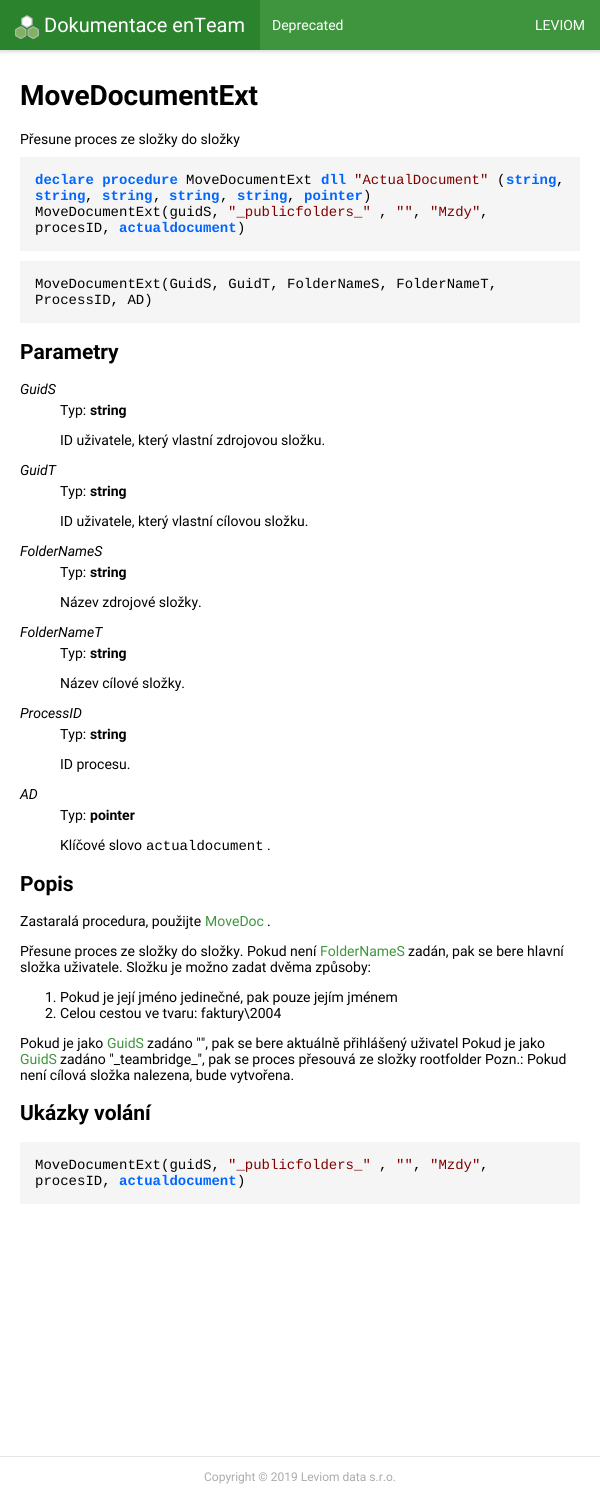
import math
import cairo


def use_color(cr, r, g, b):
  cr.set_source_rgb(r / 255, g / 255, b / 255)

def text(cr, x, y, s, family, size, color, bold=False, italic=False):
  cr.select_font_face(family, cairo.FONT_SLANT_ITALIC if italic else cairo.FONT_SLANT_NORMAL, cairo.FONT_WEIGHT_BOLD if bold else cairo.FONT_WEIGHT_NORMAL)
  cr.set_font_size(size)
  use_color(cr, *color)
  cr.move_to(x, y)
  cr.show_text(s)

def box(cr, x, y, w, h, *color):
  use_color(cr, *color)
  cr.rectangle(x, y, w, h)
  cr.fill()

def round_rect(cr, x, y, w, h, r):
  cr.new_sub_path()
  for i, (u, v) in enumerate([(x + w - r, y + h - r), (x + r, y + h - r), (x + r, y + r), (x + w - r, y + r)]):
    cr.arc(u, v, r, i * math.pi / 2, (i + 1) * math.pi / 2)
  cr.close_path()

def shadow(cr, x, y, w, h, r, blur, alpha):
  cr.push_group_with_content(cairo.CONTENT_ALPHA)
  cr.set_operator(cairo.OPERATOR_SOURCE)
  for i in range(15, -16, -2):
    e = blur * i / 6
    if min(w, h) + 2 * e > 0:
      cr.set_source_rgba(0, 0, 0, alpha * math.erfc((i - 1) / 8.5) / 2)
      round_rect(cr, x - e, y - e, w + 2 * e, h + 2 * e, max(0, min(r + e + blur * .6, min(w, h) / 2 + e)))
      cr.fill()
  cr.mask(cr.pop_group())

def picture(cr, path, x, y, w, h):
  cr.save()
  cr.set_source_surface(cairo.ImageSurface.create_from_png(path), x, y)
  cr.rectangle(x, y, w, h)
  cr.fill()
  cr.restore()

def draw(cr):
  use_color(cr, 255, 255, 255)
  cr.paint()
  use_color(cr, 0, 0, 0)
  shadow(cr, 0, 2, 600, 50, 0, 2, 0.15)
  box(cr, 260, 0, 340, 50, 63, 149, 62)
  box(cr, 0, 0, 260, 50, 43, 131, 46)
  picture(cr, "img_01.png", 15, 15, 24, 24)
  box(cr, 20, 157, 560, 94, 245, 245, 245)
  box(cr, 20, 261, 560, 62, 245, 245, 245)
  box(cr, 20, 1142, 560, 62, 245, 245, 245)
  box(cr, 0, 1456, 600, 1, 229, 229, 229)
  text(cr, 44, 32, "Dokumentace enTeam", "Roboto", 20, (255, 255, 255))
  text(cr, 272, 30, "Deprecated", "Roboto", 14, (255, 255, 255))
  text(cr, 535, 30, "LEVIOM", "Roboto", 14, (255, 255, 255))
  text(cr, 20, 105, "MoveDocumentExt", "Roboto", 28, (0, 0, 0), bold=True)
  text(cr, 20, 144, "Přesune proces ze složky do složky", "Roboto", 14, (0, 0, 0))
  text(cr, 35, 184, "declare procedure", "Liberation Mono", 14, (0, 102, 255), bold=True)
  text(cr, 186, 184, "MoveDocumentExt", "Liberation Mono", 14, (0, 0, 0))
  text(cr, 321, 184, "dll", "Liberation Mono", 14, (0, 102, 255), bold=True)
  text(cr, 354, 184, "\"ActualDocument\"", "Liberation Mono", 14, (128, 0, 0))
  text(cr, 497, 184, "(", "Liberation Mono", 14, (0, 0, 0))
  text(cr, 506, 184, "string", "Liberation Mono", 14, (0, 102, 255), bold=True)
  text(cr, 556, 184, ",", "Liberation Mono", 14, (0, 0, 0))
  text(cr, 35, 200, "string", "Liberation Mono", 14, (0, 102, 255), bold=True)
  text(cr, 85, 200, ",", "Liberation Mono", 14, (0, 0, 0))
  text(cr, 102, 200, "string", "Liberation Mono", 14, (0, 102, 255), bold=True)
  text(cr, 153, 200, ",", "Liberation Mono", 14, (0, 0, 0))
  text(cr, 169, 200, "string", "Liberation Mono", 14, (0, 102, 255), bold=True)
  text(cr, 220, 200, ",", "Liberation Mono", 14, (0, 0, 0))
  text(cr, 237, 200, "string", "Liberation Mono", 14, (0, 102, 255), bold=True)
  text(cr, 287, 200, ",", "Liberation Mono", 14, (0, 0, 0))
  text(cr, 304, 200, "pointer", "Liberation Mono", 14, (0, 102, 255), bold=True)
  text(cr, 363, 200, ")", "Liberation Mono", 14, (0, 0, 0))
  text(cr, 35, 216, "MoveDocumentExt(guidS,", "Liberation Mono", 14, (0, 0, 0))
  text(cr, 228, 216, "\"_publicfolders_\"", "Liberation Mono", 14, (128, 0, 0))
  text(cr, 379, 216, ",", "Liberation Mono", 14, (0, 0, 0))
  text(cr, 396, 216, "\"\"", "Liberation Mono", 14, (128, 0, 0))
  text(cr, 413, 216, ",", "Liberation Mono", 14, (0, 0, 0))
  text(cr, 430, 216, "\"Mzdy\"", "Liberation Mono", 14, (128, 0, 0))
  text(cr, 480, 216, ",", "Liberation Mono", 14, (0, 0, 0))
  text(cr, 35, 232, "procesID,", "Liberation Mono", 14, (0, 0, 0))
  text(cr, 119, 232, "actualdocument", "Liberation Mono", 14, (0, 102, 255), bold=True)
  text(cr, 237, 232, ")", "Liberation Mono", 14, (0, 0, 0))
  text(cr, 35, 288, "MoveDocumentExt(GuidS, GuidT, FolderNameS, FolderNameT,", "Liberation Mono", 14, (0, 0, 0))
  text(cr, 35, 304, "ProcessID, AD)", "Liberation Mono", 14, (0, 0, 0))
  text(cr, 20, 359, "Parametry", "Roboto", 21, (0, 0, 0), bold=True)
  text(cr, 20, 394, "GuidS", "Roboto", 14, (0, 0, 0), italic=True)
  text(cr, 60, 415, "Typ:", "Roboto", 14, (0, 0, 0))
  text(cr, 90, 415, "string", "Roboto", 14, (0, 0, 0), bold=True)
  text(cr, 60, 445, "ID uživatele, který vlastní zdrojovou složku.", "Roboto", 14, (0, 0, 0))
  text(cr, 20, 475, "GuidT", "Roboto", 14, (0, 0, 0), italic=True)
  text(cr, 60, 496, "Typ:", "Roboto", 14, (0, 0, 0))
  text(cr, 90, 496, "string", "Roboto", 14, (0, 0, 0), bold=True)
  text(cr, 60, 526, "ID uživatele, který vlastní cílovou složku.", "Roboto", 14, (0, 0, 0))
  text(cr, 20, 556, "FolderNameS", "Roboto", 14, (0, 0, 0), italic=True)
  text(cr, 60, 577, "Typ:", "Roboto", 14, (0, 0, 0))
  text(cr, 90, 577, "string", "Roboto", 14, (0, 0, 0), bold=True)
  text(cr, 60, 607, "Název zdrojové složky.", "Roboto", 14, (0, 0, 0))
  text(cr, 20, 637, "FolderNameT", "Roboto", 14, (0, 0, 0), italic=True)
  text(cr, 60, 658, "Typ:", "Roboto", 14, (0, 0, 0))
  text(cr, 90, 658, "string", "Roboto", 14, (0, 0, 0), bold=True)
  text(cr, 60, 688, "Název cílové složky.", "Roboto", 14, (0, 0, 0))
  text(cr, 20, 718, "ProcessID", "Roboto", 14, (0, 0, 0), italic=True)
  text(cr, 60, 739, "Typ:", "Roboto", 14, (0, 0, 0))
  text(cr, 90, 739, "string", "Roboto", 14, (0, 0, 0), bold=True)
  text(cr, 60, 769, "ID procesu.", "Roboto", 14, (0, 0, 0))
  text(cr, 20, 799, "AD", "Roboto", 14, (0, 0, 0), italic=True)
  text(cr, 60, 820, "Typ:", "Roboto", 14, (0, 0, 0))
  text(cr, 90, 820, "pointer", "Roboto", 14, (0, 0, 0), bold=True)
  text(cr, 60, 850, "Klíčové slovo", "Roboto", 14, (0, 0, 0))
  text(cr, 146, 850, "actualdocument", "Liberation Mono", 14, (0, 0, 0))
  text(cr, 267, 850, ".", "Roboto", 14, (0, 0, 0))
  text(cr, 20, 891, "Popis", "Roboto", 21, (0, 0, 0), bold=True)
  text(cr, 20, 926, "Zastaralá procedura, použijte", "Roboto", 14, (0, 0, 0))
  text(cr, 205, 926, "MoveDoc", "Roboto", 14, (63, 149, 62))
  text(cr, 267, 926, ".", "Roboto", 14, (0, 0, 0))
  text(cr, 20, 956, "Přesune proces ze složky do složky. Pokud není", "Roboto", 14, (0, 0, 0))
  text(cr, 320, 956, "FolderNameS", "Roboto", 14, (63, 149, 62))
  text(cr, 408, 956, "zadán, pak se bere hlavní", "Roboto", 14, (0, 0, 0))
  text(cr, 20, 972, "složka uživatele. Složku je možno zadat dvěma způsoby:", "Roboto", 14, (0, 0, 0))
  text(cr, 45, 1002, "1. Pokud je její jméno jedinečné, pak pouze jejím jménem", "Roboto", 14, (0, 0, 0))
  text(cr, 45, 1018, "2. Celou cestou ve tvaru: faktury\\2004", "Roboto", 14, (0, 0, 0))
  text(cr, 20, 1048, "Pokud je jako", "Roboto", 14, (0, 0, 0))
  text(cr, 107, 1048, "GuidS", "Roboto", 14, (63, 149, 62))
  text(cr, 147, 1048, "zadáno \"\", pak se bere aktuálně přihlášený uživatel Pokud je jako", "Roboto", 14, (0, 0, 0))
  text(cr, 20, 1064, "GuidS", "Roboto", 14, (63, 149, 62))
  text(cr, 60, 1064, "zadáno \"_teambridge_\", pak se proces přesouvá ze složky rootfolder Pozn.: Pokud", "Roboto", 14, (0, 0, 0))
  text(cr, 20, 1080, "není cílová složka nalezena, bude vytvořena.", "Roboto", 14, (0, 0, 0))
  text(cr, 20, 1120, "Ukázky volání", "Roboto", 21, (0, 0, 0), bold=True)
  text(cr, 35, 1169, "MoveDocumentExt(guidS,", "Liberation Mono", 14, (0, 0, 0))
  text(cr, 228, 1169, "\"_publicfolders_\"", "Liberation Mono", 14, (128, 0, 0))
  text(cr, 379, 1169, ",", "Liberation Mono", 14, (0, 0, 0))
  text(cr, 396, 1169, "\"\"", "Liberation Mono", 14, (128, 0, 0))
  text(cr, 413, 1169, ",", "Liberation Mono", 14, (0, 0, 0))
  text(cr, 430, 1169, "\"Mzdy\"", "Liberation Mono", 14, (128, 0, 0))
  text(cr, 480, 1169, ",", "Liberation Mono", 14, (0, 0, 0))
  text(cr, 35, 1185, "procesID,", "Liberation Mono", 14, (0, 0, 0))
  text(cr, 119, 1185, "actualdocument", "Liberation Mono", 14, (0, 102, 255), bold=True)
  text(cr, 237, 1185, ")", "Liberation Mono", 14, (0, 0, 0))
  text(cr, 204, 1481, "Copyright © 2019 Leviom data s.r.o.", "Roboto", 12, (171, 171, 171))


surface = cairo.ImageSurface(cairo.FORMAT_RGB24, 600, 1497)
cr = cairo.Context(surface)
options = cairo.FontOptions()
options.set_hint_metrics(cairo.HINT_METRICS_OFF)
options.set_hint_style(cairo.HINT_STYLE_NONE)
cr.set_font_options(options)
cr.set_miter_limit(4)
draw(cr)
surface.write_to_png("out.png")
